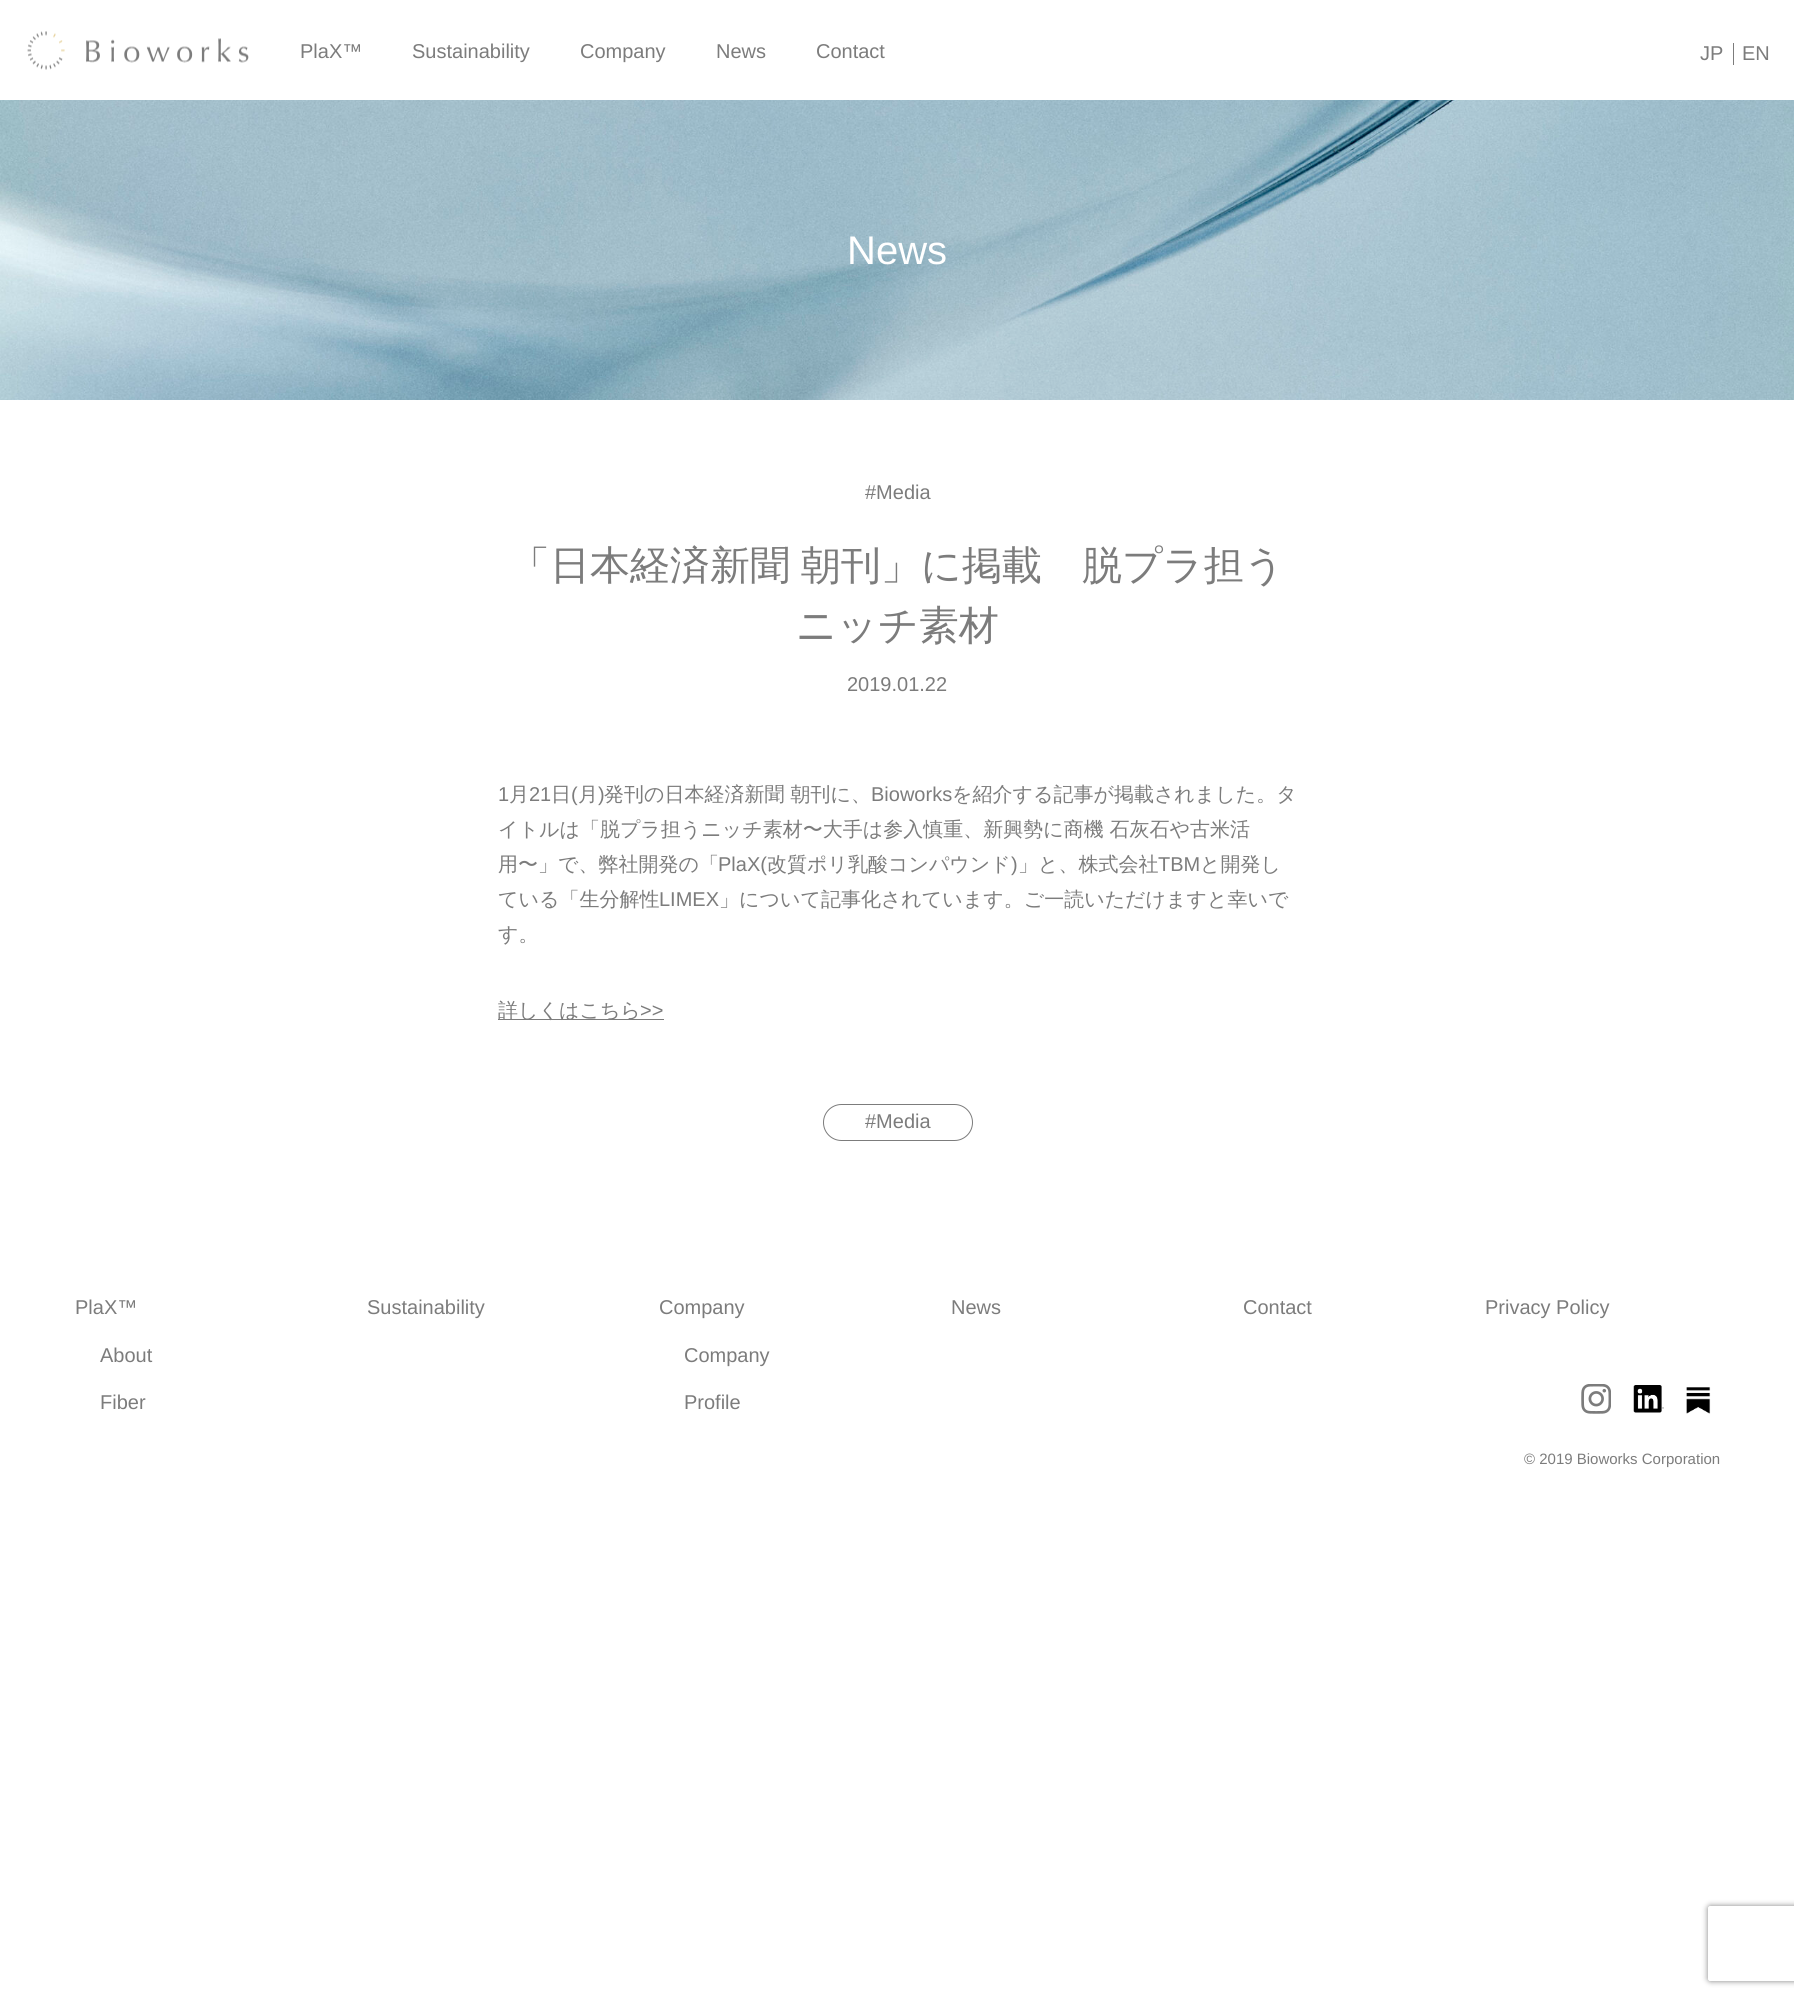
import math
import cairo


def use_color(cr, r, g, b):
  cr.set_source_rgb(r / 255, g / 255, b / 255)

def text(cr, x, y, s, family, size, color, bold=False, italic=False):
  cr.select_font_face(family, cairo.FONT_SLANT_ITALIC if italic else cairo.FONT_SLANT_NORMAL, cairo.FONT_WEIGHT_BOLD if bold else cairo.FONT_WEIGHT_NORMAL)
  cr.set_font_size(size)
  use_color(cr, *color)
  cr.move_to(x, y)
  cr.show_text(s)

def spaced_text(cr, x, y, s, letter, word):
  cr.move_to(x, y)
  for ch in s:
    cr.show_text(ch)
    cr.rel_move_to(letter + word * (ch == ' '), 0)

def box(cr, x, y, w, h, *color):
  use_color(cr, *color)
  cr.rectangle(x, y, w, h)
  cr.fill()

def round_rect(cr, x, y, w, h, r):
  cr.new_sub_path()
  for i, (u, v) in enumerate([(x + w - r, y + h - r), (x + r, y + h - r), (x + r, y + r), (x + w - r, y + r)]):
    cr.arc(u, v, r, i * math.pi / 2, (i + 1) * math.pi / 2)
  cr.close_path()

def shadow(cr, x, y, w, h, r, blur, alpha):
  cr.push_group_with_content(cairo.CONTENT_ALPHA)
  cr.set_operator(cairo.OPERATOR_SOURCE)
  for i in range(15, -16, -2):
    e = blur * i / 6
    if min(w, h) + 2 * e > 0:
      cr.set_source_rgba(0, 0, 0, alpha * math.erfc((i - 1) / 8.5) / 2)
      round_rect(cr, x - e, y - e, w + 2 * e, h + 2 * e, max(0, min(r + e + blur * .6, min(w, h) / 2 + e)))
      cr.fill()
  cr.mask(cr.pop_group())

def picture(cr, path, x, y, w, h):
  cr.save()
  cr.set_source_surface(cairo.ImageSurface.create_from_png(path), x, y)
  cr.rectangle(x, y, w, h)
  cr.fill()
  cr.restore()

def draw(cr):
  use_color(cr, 255, 255, 255)
  cr.paint()
  picture(cr, "img_01.png", 27, 31, 222, 39)
  box(cr, 1733, 43, 1, 22, 124, 124, 124)
  picture(cr, "img_02.png", 0, 100, 1794, 300)
  box(cr, 498, 1019, 166, 1, 124, 124, 124)
  round_rect(cr, 823.5, 1104.5, 149, 36, 18)
  cr.set_line_width(1)
  cr.stroke()
  picture(cr, "img_03.png", 1581, 1384, 30, 30)
  picture(cr, "img_04.png", 1633, 1385, 31, 28)
  picture(cr, "img_05.png", 1686, 1387, 25, 27)
  cr.save()
  cr.set_fill_rule(cairo.FILL_RULE_EVEN_ODD)
  cr.new_path()
  cr.move_to(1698, 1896)
  cr.line_to(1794, 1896)
  cr.line_to(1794, 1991)
  cr.line_to(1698, 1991)
  cr.close_path()
  cr.move_to(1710.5, 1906)
  cr.line_to(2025.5, 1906)
  cr.curve_to(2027, 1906, 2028, 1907, 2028, 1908.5)
  cr.line_to(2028, 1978.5)
  cr.curve_to(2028, 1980, 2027, 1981, 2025.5, 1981)
  cr.line_to(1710.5, 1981)
  cr.curve_to(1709, 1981, 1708, 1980, 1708, 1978.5)
  cr.line_to(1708, 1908.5)
  cr.curve_to(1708, 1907, 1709, 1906, 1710.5, 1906)
  cr.close_path()
  cr.clip()
  use_color(cr, 128, 128, 128)
  shadow(cr, 1708, 1906, 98, 75, 2.5, 3, 1)
  cr.restore()
  text(cr, 300, 58, "PlaX™", "Liberation Sans", 20, (124, 124, 124))
  text(cr, 412, 58, "Sustainability", "Liberation Sans", 20, (124, 124, 124))
  text(cr, 580, 58, "Company", "Liberation Sans", 20, (124, 124, 124))
  text(cr, 716, 58, "News", "Liberation Sans", 20, (124, 124, 124))
  text(cr, 816, 58, "Contact", "Liberation Sans", 20, (124, 124, 124))
  text(cr, 1700, 60, "JP", "Liberation Sans", 20, (124, 124, 124))
  text(cr, 1742, 60, "EN", "Liberation Sans", 20, (124, 124, 124))
  text(cr, 847, 264, "News", "Liberation Sans", 40, (255, 255, 255))
  text(cr, 865, 499, "#Media", "Liberation Sans", 20, (124, 124, 124))
  cr.select_font_face("WenQuanYi Zen Hei Medium")
  cr.set_font_size(40)
  spaced_text(cr, 510, 579, "「日本経済新聞 朝刊」に掲載　脱プラ担う", 0, -1)
  text(cr, 796, 639, "ニッチ素材", "WenQuanYi Zen Hei Medium", 40, (124, 124, 124))
  text(cr, 847, 691, "2019.01.22", "Liberation Sans", 20, (124, 124, 124))
  text(cr, 498, 801, "1", "Liberation Sans", 20, (124, 124, 124))
  text(cr, 509, 801, "月", "WenQuanYi Zen Hei Medium", 20, (124, 124, 124))
  text(cr, 529, 801, "21", "Liberation Sans", 20, (124, 124, 124))
  text(cr, 551, 801, "日", "WenQuanYi Zen Hei Medium", 20, (124, 124, 124))
  text(cr, 571, 801, "(", "Liberation Sans", 20, (124, 124, 124))
  text(cr, 578, 801, "月", "WenQuanYi Zen Hei Medium", 20, (124, 124, 124))
  text(cr, 598, 801, ")", "Liberation Sans", 20, (124, 124, 124))
  text(cr, 604, 801, "発刊の日本経済新聞 朝刊に、", "WenQuanYi Zen Hei Medium", 20, (124, 124, 124))
  text(cr, 871, 801, "Bioworks", "Liberation Sans", 20, (124, 124, 124))
  text(cr, 952, 801, "を紹介する記事が掲載されました。タ", "WenQuanYi Zen Hei Medium", 20, (124, 124, 124))
  text(cr, 498, 836, "イトルは「脱プラ担うニッチ素材〜大手は参入慎重、新興勢に商機 石灰石や古米活", "WenQuanYi Zen Hei Medium", 20, (124, 124, 124))
  text(cr, 498, 871, "用〜」で、弊社開発の「", "WenQuanYi Zen Hei Medium", 20, (124, 124, 124))
  text(cr, 718, 871, "PlaX(", "Liberation Sans", 20, (124, 124, 124))
  text(cr, 767, 871, "改質ポリ乳酸コンパウンド", "WenQuanYi Zen Hei Medium", 20, (124, 124, 124))
  text(cr, 1011, 871, ")", "Liberation Sans", 20, (124, 124, 124))
  text(cr, 1018, 871, "」と、株式会社", "WenQuanYi Zen Hei Medium", 20, (124, 124, 124))
  text(cr, 1158, 871, "TBM", "Liberation Sans", 20, (124, 124, 124))
  text(cr, 1200, 871, "と開発し", "WenQuanYi Zen Hei Medium", 20, (124, 124, 124))
  text(cr, 498, 906, "ている「生分解性", "WenQuanYi Zen Hei Medium", 20, (124, 124, 124))
  text(cr, 659, 906, "LIMEX", "Liberation Sans", 20, (124, 124, 124))
  text(cr, 719, 906, "」について記事化されています。ご一読いただけますと幸いで", "WenQuanYi Zen Hei Medium", 20, (124, 124, 124))
  text(cr, 498, 941, "す。", "WenQuanYi Zen Hei Medium", 20, (124, 124, 124))
  text(cr, 498, 1017, "詳しくはこちら", "WenQuanYi Zen Hei Medium", 20, (124, 124, 124))
  text(cr, 640, 1017, ">>", "Liberation Sans", 20, (124, 124, 124))
  text(cr, 865, 1128, "#Media", "Liberation Sans", 20, (124, 124, 124))
  text(cr, 75, 1314, "PlaX™", "Liberation Sans", 20, (124, 124, 124))
  text(cr, 100, 1362, "About", "Liberation Sans", 20, (124, 124, 124))
  text(cr, 100, 1409, "Fiber", "Liberation Sans", 20, (124, 124, 124))
  text(cr, 367, 1314, "Sustainability", "Liberation Sans", 20, (124, 124, 124))
  text(cr, 659, 1314, "Company", "Liberation Sans", 20, (124, 124, 124))
  text(cr, 684, 1362, "Company", "Liberation Sans", 20, (124, 124, 124))
  text(cr, 684, 1409, "Profile", "Liberation Sans", 20, (124, 124, 124))
  text(cr, 951, 1314, "News", "Liberation Sans", 20, (124, 124, 124))
  text(cr, 1243, 1314, "Contact", "Liberation Sans", 20, (124, 124, 124))
  text(cr, 1485, 1314, "Privacy Policy", "Liberation Sans", 20, (124, 124, 124))
  text(cr, 1524, 1464, "© 2019 Bioworks Corporation", "Liberation Sans", 15, (124, 124, 124))


surface = cairo.ImageSurface(cairo.FORMAT_RGB24, 1794, 1998)
cr = cairo.Context(surface)
options = cairo.FontOptions()
options.set_hint_metrics(cairo.HINT_METRICS_OFF)
options.set_hint_style(cairo.HINT_STYLE_NONE)
cr.set_font_options(options)
cr.set_miter_limit(4)
draw(cr)
surface.write_to_png("out.png")
